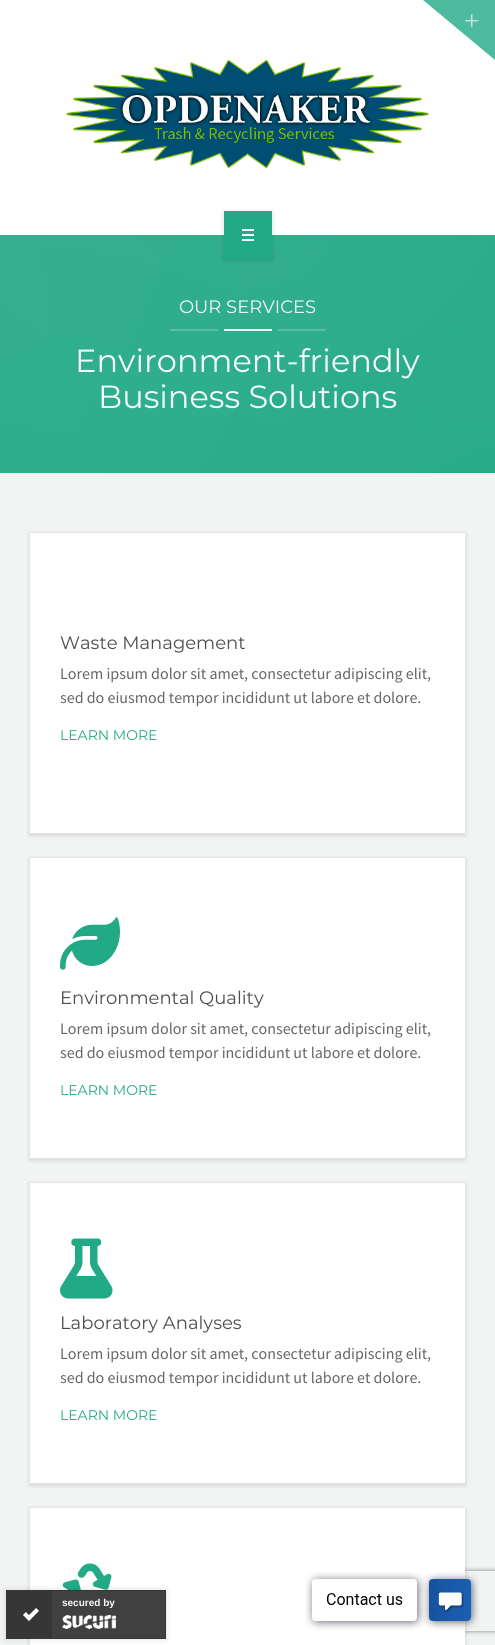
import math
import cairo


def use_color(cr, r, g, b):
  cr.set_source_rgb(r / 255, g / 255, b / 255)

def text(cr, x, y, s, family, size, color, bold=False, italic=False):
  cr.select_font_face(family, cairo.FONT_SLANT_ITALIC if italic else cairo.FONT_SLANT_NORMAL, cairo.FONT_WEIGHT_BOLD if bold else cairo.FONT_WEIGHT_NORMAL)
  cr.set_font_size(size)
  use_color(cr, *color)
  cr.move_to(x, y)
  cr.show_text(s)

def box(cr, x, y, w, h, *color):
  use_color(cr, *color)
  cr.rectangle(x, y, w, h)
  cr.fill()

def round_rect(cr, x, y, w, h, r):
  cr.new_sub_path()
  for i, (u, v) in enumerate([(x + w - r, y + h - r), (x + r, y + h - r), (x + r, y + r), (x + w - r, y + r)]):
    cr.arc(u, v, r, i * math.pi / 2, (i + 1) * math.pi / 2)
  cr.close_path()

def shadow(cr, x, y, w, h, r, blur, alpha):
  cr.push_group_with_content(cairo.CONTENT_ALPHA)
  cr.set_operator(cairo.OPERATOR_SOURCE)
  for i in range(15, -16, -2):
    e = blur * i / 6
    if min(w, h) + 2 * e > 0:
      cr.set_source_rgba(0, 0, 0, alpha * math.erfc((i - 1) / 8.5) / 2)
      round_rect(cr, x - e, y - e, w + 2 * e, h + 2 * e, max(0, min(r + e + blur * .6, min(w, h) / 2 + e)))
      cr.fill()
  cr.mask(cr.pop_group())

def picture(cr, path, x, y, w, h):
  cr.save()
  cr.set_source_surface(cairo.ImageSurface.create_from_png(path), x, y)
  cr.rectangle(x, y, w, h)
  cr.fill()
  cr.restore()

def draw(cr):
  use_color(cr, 255, 255, 255)
  cr.paint()
  use_color(cr, 78, 187, 158)
  cr.new_path()
  cr.move_to(423, 0)
  cr.line_to(495, 0)
  cr.line_to(495, 60)
  cr.close_path()
  cr.fill()
  picture(cr, "img_01.png", 465, 14, 14, 14)
  picture(cr, "img_02.png", 66, 60, 363, 108)
  picture(cr, "img_03.png", 0, 235, 495, 238)
  use_color(cr, 0, 0, 0)
  shadow(cr, 224, 212, 48, 48, 0, 2.5, 0.15)
  box(cr, 224, 211, 48, 48, 34, 170, 134)
  box(cr, 242, 229, 12, 2, 255, 255, 255)
  box(cr, 242, 234, 12, 2, 255, 255, 255)
  box(cr, 242, 239, 12, 2, 255, 255, 255)
  box(cr, 0, 473, 495, 1172, 242, 244, 244)
  box(cr, 170, 329, 48, 2, 89, 191, 163)
  box(cr, 278, 329, 48, 2, 87, 190, 162)
  box(cr, 224, 329, 48, 2, 245, 251, 249)
  use_color(cr, 0, 0, 0)
  shadow(cr, 30, 534, 435, 301, 0, 2.5, 0.15)
  box(cr, 30, 533, 435, 300, 255, 255, 255)
  box(cr, 29, 532, 436, 1, 229, 229, 229)
  box(cr, 29, 833, 436, 1, 229, 229, 229)
  box(cr, 29, 532, 1, 4, 229, 229, 229)
  use_color(cr, 0, 0, 0)
  shadow(cr, 30, 859, 435, 301, 0, 2.5, 0.15)
  box(cr, 30, 858, 435, 300, 255, 255, 255)
  box(cr, 29, 857, 436, 1, 229, 229, 229)
  box(cr, 29, 1158, 436, 1, 229, 229, 229)
  box(cr, 29, 857, 1, 4, 229, 229, 229)
  picture(cr, "img_04.png", 60, 917, 60, 53)
  use_color(cr, 0, 0, 0)
  shadow(cr, 30, 1184, 435, 301, 0, 2.5, 0.15)
  box(cr, 30, 1183, 435, 300, 255, 255, 255)
  box(cr, 29, 1182, 436, 1, 229, 229, 229)
  box(cr, 29, 1483, 436, 1, 229, 229, 229)
  box(cr, 29, 1182, 1, 4, 229, 229, 229)
  picture(cr, "img_05.png", 60, 1238, 53, 61)
  use_color(cr, 0, 0, 0)
  shadow(cr, 30, 1509, 435, 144, 0, 2.5, 0.15)
  box(cr, 29, 1507, 436, 1, 229, 229, 229)
  box(cr, 29, 1507, 1, 4, 229, 229, 229)
  cr.save()
  cr.set_fill_rule(cairo.FILL_RULE_EVEN_ODD)
  cr.new_path()
  cr.move_to(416, 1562)
  cr.line_to(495, 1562)
  cr.line_to(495, 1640)
  cr.line_to(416, 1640)
  cr.close_path()
  cr.move_to(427, 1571)
  cr.line_to(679, 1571)
  cr.curve_to(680, 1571, 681, 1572, 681, 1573)
  cr.line_to(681, 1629)
  cr.curve_to(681, 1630, 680, 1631, 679, 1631)
  cr.line_to(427, 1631)
  cr.curve_to(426, 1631, 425, 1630, 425, 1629)
  cr.line_to(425, 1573)
  cr.curve_to(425, 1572, 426, 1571, 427, 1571)
  cr.close_path()
  cr.clip()
  use_color(cr, 128, 128, 128)
  shadow(cr, 425, 1571, 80, 60, 2, 2.5, 1)
  cr.restore()
  box(cr, 30, 1508, 435, 137, 255, 255, 255)
  picture(cr, "img_06.png", 62, 1563, 50, 27)
  use_color(cr, 0, 0, 0)
  shadow(cr, 6, 1590, 160, 49, 0, 3, 0.14)
  box(cr, 52, 1591, 113, 47, 64, 64, 64)
  cr.rectangle(6.5, 1590.5, 159, 48)
  use_color(cr, 54, 54, 54)
  cr.set_line_width(1)
  cr.stroke()
  box(cr, 7, 1591, 45, 47, 54, 54, 54)
  picture(cr, "img_07.png", 23, 1608, 16, 13)
  picture(cr, "img_08.png", 62, 1615, 54, 14)
  picture(cr, "img_09.png", 305, 1572, 175, 58)
  text(cr, 179, 313, "OUR SERVICES", "Montserrat Thin", 18, (245, 251, 249))
  text(cr, 75, 372, "Environment-friendly", "Montserrat Thin", 32, (245, 251, 249))
  text(cr, 98, 408, "Business Solutions", "Montserrat Thin", 32, (245, 251, 249))
  text(cr, 60, 649, "Waste Management", "Montserrat Thin", 18, (77, 77, 77))
  text(cr, 60, 679, "Lorem ipsum dolor sit amet, consectetur adipiscing elit,", "Source Sans Pro", 16, (102, 102, 102))
  text(cr, 60, 703, "sed do eiusmod tempor incididunt ut labore et dolore.", "Source Sans Pro", 16, (102, 102, 102))
  text(cr, 60, 740, "LEARN MORE", "Montserrat Thin", 14, (34, 170, 134))
  text(cr, 60, 1004, "Environmental Quality", "Montserrat Thin", 18, (77, 77, 77))
  text(cr, 60, 1034, "Lorem ipsum dolor sit amet, consectetur adipiscing elit,", "Source Sans Pro", 16, (102, 102, 102))
  text(cr, 60, 1058, "sed do eiusmod tempor incididunt ut labore et dolore.", "Source Sans Pro", 16, (102, 102, 102))
  text(cr, 60, 1095, "LEARN MORE", "Montserrat Thin", 14, (34, 170, 134))
  text(cr, 60, 1329, "Laboratory Analyses", "Montserrat Thin", 18, (77, 77, 77))
  text(cr, 60, 1359, "Lorem ipsum dolor sit amet, consectetur adipiscing elit,", "Source Sans Pro", 16, (102, 102, 102))
  text(cr, 60, 1383, "sed do eiusmod tempor incididunt ut labore et dolore.", "Source Sans Pro", 16, (102, 102, 102))
  text(cr, 60, 1420, "LEARN MORE", "Montserrat Thin", 14, (34, 170, 134))
  text(cr, 62, 1606, "secured by", "Liberation Sans", 10, (254, 254, 253), bold=True)


surface = cairo.ImageSurface(cairo.FORMAT_RGB24, 495, 1645)
cr = cairo.Context(surface)
options = cairo.FontOptions()
options.set_hint_metrics(cairo.HINT_METRICS_OFF)
options.set_hint_style(cairo.HINT_STYLE_NONE)
cr.set_font_options(options)
cr.set_miter_limit(4)
draw(cr)
surface.write_to_png("out.png")
